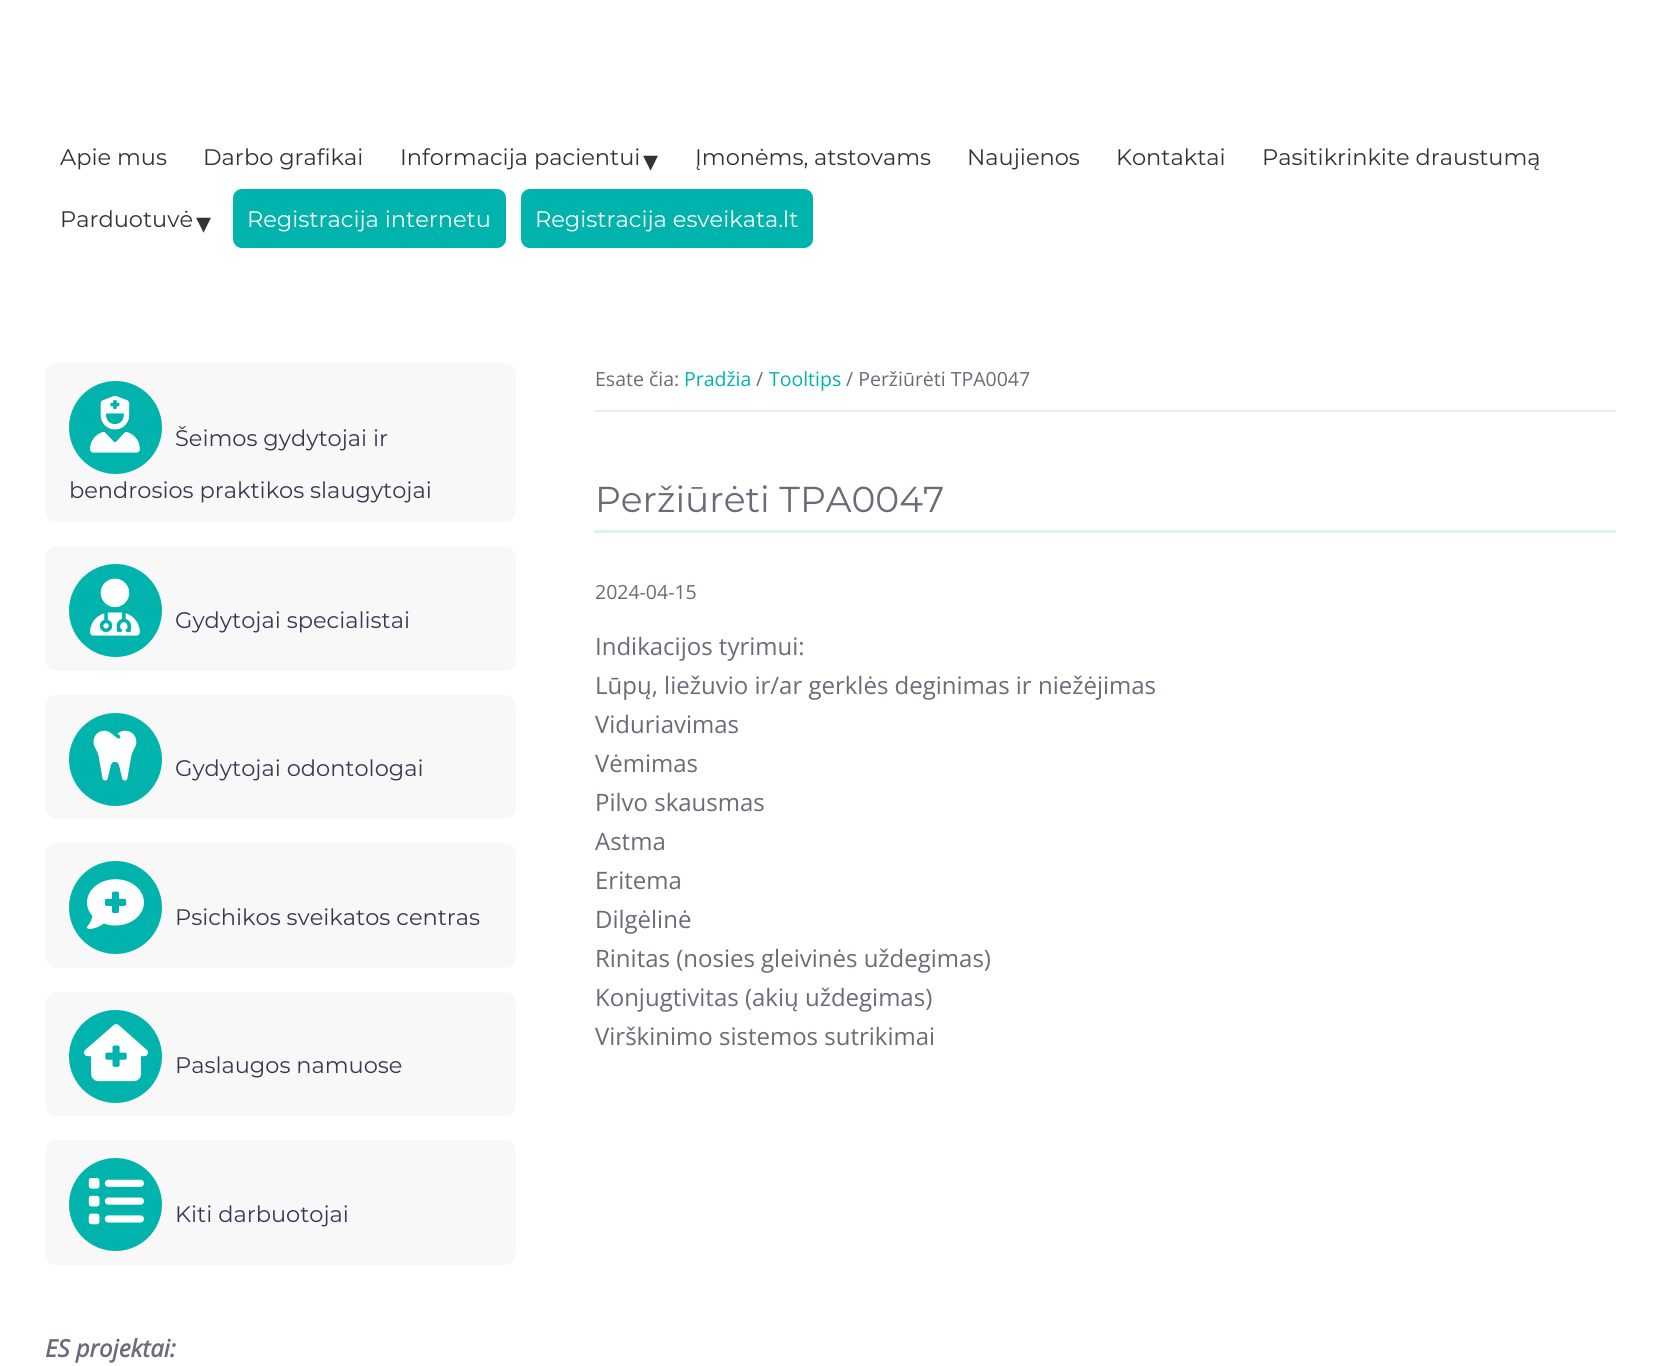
import math
import cairo


def use_color(cr, r, g, b):
  cr.set_source_rgb(r / 255, g / 255, b / 255)

def text(cr, x, y, s, family, size, color, bold=False, italic=False):
  cr.select_font_face(family, cairo.FONT_SLANT_ITALIC if italic else cairo.FONT_SLANT_NORMAL, cairo.FONT_WEIGHT_BOLD if bold else cairo.FONT_WEIGHT_NORMAL)
  cr.set_font_size(size)
  use_color(cr, *color)
  cr.move_to(x, y)
  cr.show_text(s)

def box(cr, x, y, w, h, *color):
  use_color(cr, *color)
  cr.rectangle(x, y, w, h)
  cr.fill()

def round_rect(cr, x, y, w, h, r):
  cr.new_sub_path()
  for i, (u, v) in enumerate([(x + w - r, y + h - r), (x + r, y + h - r), (x + r, y + r), (x + w - r, y + r)]):
    cr.arc(u, v, r, i * math.pi / 2, (i + 1) * math.pi / 2)
  cr.close_path()

def picture(cr, path, x, y, w, h):
  cr.save()
  cr.set_source_surface(cairo.ImageSurface.create_from_png(path), x, y)
  cr.rectangle(x, y, w, h)
  cr.fill()
  cr.restore()

def draw(cr):
  use_color(cr, 255, 255, 255)
  cr.paint()
  use_color(cr, 0, 179, 172)
  round_rect(cr, 233, 189, 273, 59, 9)
  cr.fill()
  round_rect(cr, 521, 189, 292, 59, 9)
  cr.fill()
  use_color(cr, 248, 248, 248)
  round_rect(cr, 45, 363, 471, 159, 12)
  cr.fill()
  use_color(cr, 0, 179, 172)
  cr.arc(115.5, 427.5, 46.5, 0, 2 * math.pi)
  cr.fill()
  picture(cr, "img_01.png", 90, 395, 50, 58)
  use_color(cr, 248, 248, 248)
  round_rect(cr, 45, 546, 471, 125, 12)
  cr.fill()
  use_color(cr, 0, 179, 172)
  cr.arc(115.5, 610.5, 46.5, 0, 2 * math.pi)
  cr.fill()
  picture(cr, "img_02.png", 90, 578, 50, 58)
  use_color(cr, 248, 248, 248)
  round_rect(cr, 45, 695, 471, 124, 12)
  cr.fill()
  use_color(cr, 0, 179, 172)
  cr.arc(115.5, 759.5, 46.5, 0, 2 * math.pi)
  cr.fill()
  picture(cr, "img_03.png", 93, 730, 44, 51)
  use_color(cr, 248, 248, 248)
  round_rect(cr, 45, 843, 471, 125, 12)
  cr.fill()
  use_color(cr, 0, 179, 172)
  cr.arc(115.5, 907.5, 46.5, 0, 2 * math.pi)
  cr.fill()
  picture(cr, "img_04.png", 87, 879, 57, 51)
  use_color(cr, 248, 248, 248)
  round_rect(cr, 45, 992, 471, 124, 12)
  cr.fill()
  use_color(cr, 0, 179, 172)
  cr.arc(115.5, 1056.5, 46.5, 0, 2 * math.pi)
  cr.fill()
  picture(cr, "img_05.png", 84, 1024, 65, 58)
  use_color(cr, 248, 248, 248)
  round_rect(cr, 45, 1140, 471, 125, 12)
  cr.fill()
  use_color(cr, 0, 179, 172)
  cr.arc(115.5, 1204.5, 46.5, 0, 2 * math.pi)
  cr.fill()
  picture(cr, "img_06.png", 88, 1178, 56, 47)
  box(cr, 594, 410, 1022, 2, 238, 238, 238)
  box(cr, 594, 530, 1022, 3, 224, 241, 240)
  text(cr, 60, 165, "Apie mus", "Montserrat Thin", 22.5, (51, 51, 51))
  text(cr, 203, 165, "Darbo grafikai", "Montserrat Thin", 22.5, (51, 51, 51))
  text(cr, 400, 165, "Informacija pacientui", "Montserrat Thin", 22.5, (51, 51, 51))
  text(cr, 643, 171, "▾", "DejaVu Sans", 30, (51, 51, 51))
  text(cr, 695, 165, "Įmonėms, atstovams", "Montserrat Thin", 22.5, (51, 51, 51))
  text(cr, 967, 165, "Naujienos", "Montserrat Thin", 22.5, (51, 51, 51))
  text(cr, 1116, 165, "Kontaktai", "Montserrat Thin", 22.5, (51, 51, 51))
  text(cr, 1262, 165, "Pasitikrinkite draustumą", "Montserrat Thin", 22.5, (51, 51, 51))
  text(cr, 60, 227, "Parduotuvė", "Montserrat Thin", 22.5, (51, 51, 51))
  text(cr, 196, 233, "▾", "DejaVu Sans", 30, (51, 51, 51))
  text(cr, 247, 227, "Registracija internetu", "Montserrat Thin", 22.5, (255, 255, 255))
  text(cr, 535, 227, "Registracija esveikata.lt", "Montserrat Thin", 22.5, (255, 255, 255))
  text(cr, 175, 446, "Šeimos gydytojai ir", "Montserrat Thin", 22.5, (57, 56, 83))
  text(cr, 69, 498, "bendrosios praktikos slaugytojai", "Montserrat Thin", 22.5, (57, 56, 83))
  text(cr, 175, 628, "Gydytojai specialistai", "Montserrat Thin", 22.5, (57, 56, 83))
  text(cr, 175, 776, "Gydytojai odontologai", "Montserrat Thin", 22.5, (57, 56, 83))
  text(cr, 175, 925, "Psichikos sveikatos centras", "Montserrat Thin", 22.5, (57, 56, 83))
  text(cr, 175, 1073, "Paslaugos namuose", "Montserrat Thin", 22.5, (57, 56, 83))
  text(cr, 175, 1222, "Kiti darbuotojai", "Montserrat Thin", 22.5, (57, 56, 83))
  text(cr, 45, 1357, "ES projektai:", "Open Sans", 24, (105, 108, 121), bold=True, italic=True)
  text(cr, 595, 386, "Esate čia:", "Open Sans", 19.5, (105, 108, 121))
  text(cr, 684, 386, "Pradžia", "Open Sans", 19.5, (0, 179, 172))
  text(cr, 756, 386, "/", "Open Sans", 19.5, (105, 108, 121))
  text(cr, 769, 386, "Tooltips", "Open Sans", 19.5, (0, 179, 172))
  text(cr, 846, 386, "/ Peržiūrėti TPA0047", "Open Sans", 19.5, (105, 108, 121))
  text(cr, 595, 512, "Peržiūrėti TPA0047", "Montserrat Thin", 36, (105, 108, 121))
  text(cr, 595, 599, "2024-04-15", "Open Sans", 19.5, (105, 108, 121))
  text(cr, 595, 655, "Indikacijos tyrimui:", "Open Sans", 24, (105, 108, 121))
  text(cr, 595, 694, "Lūpų, liežuvio ir/ar gerklės deginimas ir niežėjimas", "Open Sans", 24, (105, 108, 121))
  text(cr, 595, 733, "Viduriavimas", "Open Sans", 24, (105, 108, 121))
  text(cr, 595, 772, "Vėmimas", "Open Sans", 24, (105, 108, 121))
  text(cr, 595, 811, "Pilvo skausmas", "Open Sans", 24, (105, 108, 121))
  text(cr, 595, 850, "Astma", "Open Sans", 24, (105, 108, 121))
  text(cr, 595, 889, "Eritema", "Open Sans", 24, (105, 108, 121))
  text(cr, 595, 928, "Dilgėlinė", "Open Sans", 24, (105, 108, 121))
  text(cr, 595, 967, "Rinitas (nosies gleivinės uždegimas)", "Open Sans", 24, (105, 108, 121))
  text(cr, 595, 1006, "Konjugtivitas (akių uždegimas)", "Open Sans", 24, (105, 108, 121))
  text(cr, 595, 1045, "Virškinimo sistemos sutrikimai", "Open Sans", 24, (105, 108, 121))


surface = cairo.ImageSurface(cairo.FORMAT_RGB24, 1660, 1366)
cr = cairo.Context(surface)
options = cairo.FontOptions()
options.set_hint_metrics(cairo.HINT_METRICS_OFF)
options.set_hint_style(cairo.HINT_STYLE_NONE)
cr.set_font_options(options)
cr.set_miter_limit(4)
draw(cr)
surface.write_to_png("out.png")
